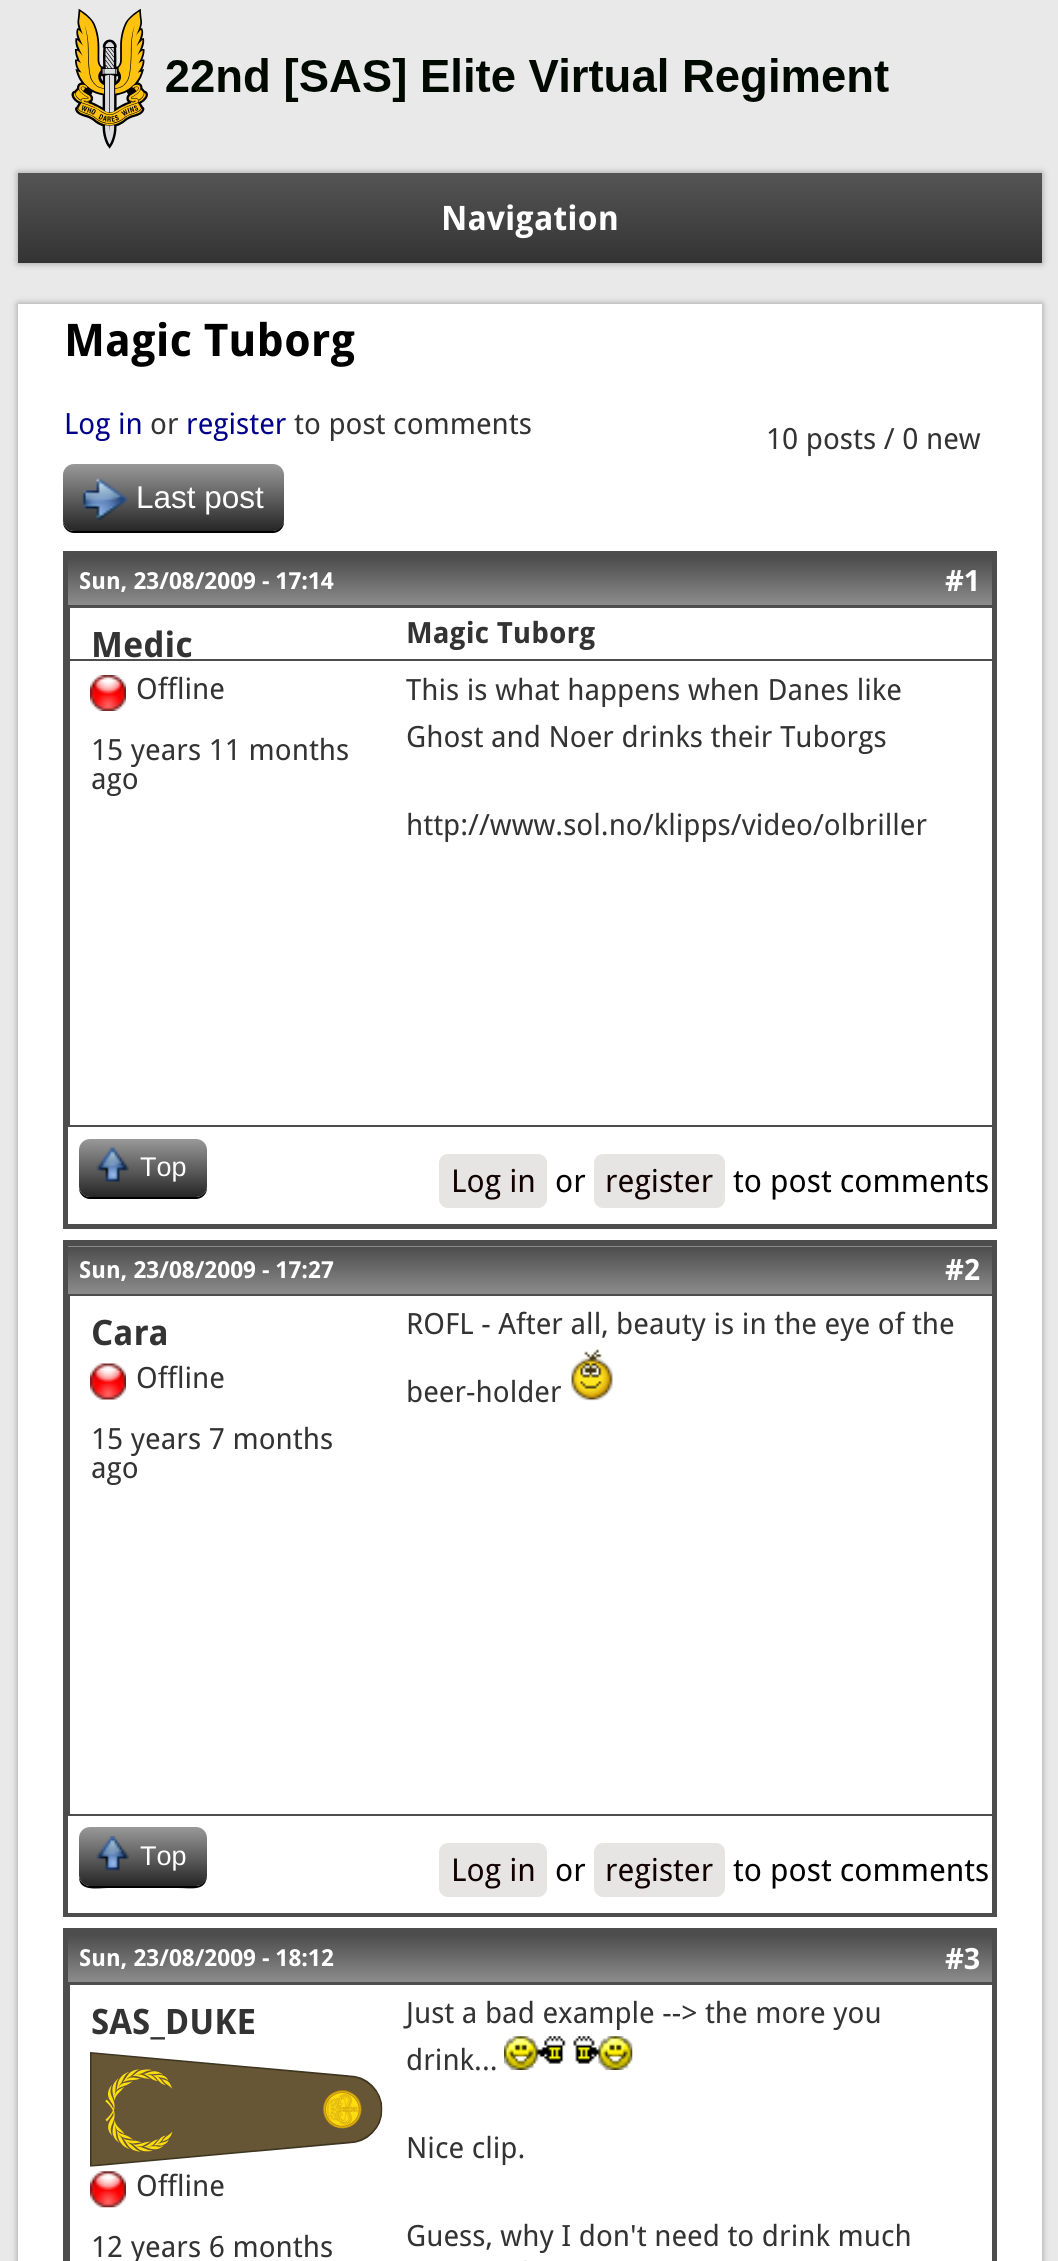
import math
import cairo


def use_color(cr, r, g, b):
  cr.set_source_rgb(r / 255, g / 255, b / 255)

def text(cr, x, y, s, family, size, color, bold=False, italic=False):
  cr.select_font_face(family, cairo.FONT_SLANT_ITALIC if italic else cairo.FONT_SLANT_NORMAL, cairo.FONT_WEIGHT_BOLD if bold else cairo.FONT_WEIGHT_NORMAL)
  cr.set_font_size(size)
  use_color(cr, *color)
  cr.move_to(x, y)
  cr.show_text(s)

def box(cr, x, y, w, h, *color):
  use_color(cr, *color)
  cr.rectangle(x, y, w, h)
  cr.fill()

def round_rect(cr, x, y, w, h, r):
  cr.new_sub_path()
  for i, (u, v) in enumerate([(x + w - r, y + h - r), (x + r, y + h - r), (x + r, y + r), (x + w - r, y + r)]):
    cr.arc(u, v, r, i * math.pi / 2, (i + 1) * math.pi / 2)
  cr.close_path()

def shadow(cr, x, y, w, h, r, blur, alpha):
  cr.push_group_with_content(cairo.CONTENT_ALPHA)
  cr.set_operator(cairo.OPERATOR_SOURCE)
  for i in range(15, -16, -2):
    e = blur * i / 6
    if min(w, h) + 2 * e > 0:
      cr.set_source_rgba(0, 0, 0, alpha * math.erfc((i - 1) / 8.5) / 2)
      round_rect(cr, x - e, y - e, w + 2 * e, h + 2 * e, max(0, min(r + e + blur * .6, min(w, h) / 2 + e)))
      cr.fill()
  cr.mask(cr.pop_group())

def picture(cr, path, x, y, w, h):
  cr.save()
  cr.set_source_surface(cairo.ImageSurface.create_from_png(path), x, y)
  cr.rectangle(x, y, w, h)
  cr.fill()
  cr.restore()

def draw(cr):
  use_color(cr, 233, 233, 233)
  cr.paint()
  picture(cr, "img_01.png", 71, 8, 818, 141)
  use_color(cr, 153, 153, 153)
  shadow(cr, 18, 173, 1024, 90, 0, 3.5, 1)
  gradient = cairo.LinearGradient(530, 173, 530, 353)
  gradient.add_color_stop_rgba(0, 0.333, 0.333, 0.333, 1)
  gradient.add_color_stop_rgba(0.5, 0.2, 0.2, 0.2, 1)
  gradient.add_color_stop_rgba(0.5, 0.333, 0.333, 0.333, 1)
  gradient.add_color_stop_rgba(1, 0.2, 0.2, 0.2, 1)
  cr.set_source(gradient)
  cr.rectangle(18, 173, 1024, 90)
  cr.fill()
  use_color(cr, 153, 153, 153)
  shadow(cr, 18, 304, 1024, 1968, 0, 3.5, 1)
  box(cr, 18, 304, 1024, 1957, 255, 255, 255)
  use_color(cr, 0, 0, 0)
  cr.new_path()
  cr.move_to(63, 520)
  cr.line_to(63, 522)
  cr.curve_to(63, 528, 68, 533, 74, 533)
  cr.line_to(273, 533)
  cr.curve_to(279, 533, 284, 528, 284, 522)
  cr.line_to(284, 477)
  cr.line_to(283, 473)
  cr.line_to(284, 520)
  cr.curve_to(284, 526, 278, 531, 272, 531)
  cr.line_to(74, 531)
  cr.curve_to(68, 531, 63, 526, 63, 520)
  cr.close_path()
  cr.fill()
  gradient = cairo.LinearGradient(63, 464, 63, 531)
  gradient.add_color_stop_rgba(0, 0.6, 0.6, 0.6, 1)
  gradient.add_color_stop_rgba(1, 0.149, 0.149, 0.149, 1)
  cr.set_source(gradient)
  round_rect(cr, 63, 464, 221, 67, 11)
  cr.fill()
  picture(cr, "img_02.png", 82, 478, 46, 42)
  cr.rectangle(65.5, 553.5, 929, 673)
  use_color(cr, 77, 77, 77)
  cr.set_line_width(5)
  cr.stroke()
  gradient = cairo.LinearGradient(68, 558, 68, 605)
  gradient.add_color_stop_rgba(0, 0.302, 0.302, 0.302, 1)
  gradient.add_color_stop_rgba(1, 0.549, 0.549, 0.549, 1)
  cr.set_source(gradient)
  cr.rectangle(68, 558, 924, 47)
  cr.fill()
  gradient = cairo.LinearGradient(68, 605, 68, 653)
  gradient.add_color_stop_rgba(0, 0.302, 0.302, 0.302, 1)
  gradient.add_color_stop_rgba(1, 0.549, 0.549, 0.549, 1)
  cr.set_source(gradient)
  cr.rectangle(68, 607, 924, 1)
  cr.fill()
  box(cr, 68, 556, 924, 2, 77, 77, 77)
  box(cr, 68, 605, 924, 2, 77, 77, 77)
  picture(cr, "img_03.png", 90, 675, 36, 36)
  box(cr, 68, 608, 2, 517, 77, 77, 77)
  box(cr, 70, 659, 922, 2, 77, 77, 77)
  box(cr, 68, 1125, 924, 2, 77, 77, 77)
  use_color(cr, 0, 0, 0)
  cr.new_path()
  cr.move_to(79, 1188)
  cr.curve_to(79, 1194, 84, 1199, 90, 1199)
  cr.line_to(196, 1199)
  cr.curve_to(202, 1199, 207, 1194, 207, 1188)
  cr.line_to(207, 1186)
  cr.curve_to(207, 1192, 202, 1197, 196, 1197)
  cr.line_to(90, 1197)
  cr.curve_to(85, 1197, 80, 1193, 79, 1188)
  cr.close_path()
  cr.fill()
  gradient = cairo.LinearGradient(79, 1139, 79, 1197)
  gradient.add_color_stop_rgba(0, 0.6, 0.6, 0.6, 1)
  gradient.add_color_stop_rgba(1, 0.149, 0.149, 0.149, 1)
  cr.set_source(gradient)
  round_rect(cr, 79, 1139, 128, 58, 11)
  cr.fill()
  picture(cr, "img_04.png", 96, 1147, 33, 35)
  use_color(cr, 231, 229, 227)
  round_rect(cr, 439, 1154, 108, 54, 9)
  cr.fill()
  round_rect(cr, 594, 1154, 131, 54, 9)
  cr.fill()
  cr.rectangle(65.5, 1242.5, 929, 672)
  use_color(cr, 77, 77, 77)
  cr.stroke()
  gradient = cairo.LinearGradient(68, 1199, 68, 1247)
  gradient.add_color_stop_rgba(0, 0.302, 0.302, 0.302, 1)
  gradient.add_color_stop_rgba(1, 0.549, 0.549, 0.549, 1)
  cr.set_source(gradient)
  cr.rectangle(68, 1246, 924, 1)
  cr.fill()
  gradient = cairo.LinearGradient(68, 1247, 68, 1294)
  gradient.add_color_stop_rgba(0, 0.302, 0.302, 0.302, 1)
  gradient.add_color_stop_rgba(1, 0.549, 0.549, 0.549, 1)
  cr.set_source(gradient)
  cr.rectangle(68, 1247, 924, 47)
  cr.fill()
  box(cr, 68, 1245, 924, 1, 77, 77, 77)
  box(cr, 68, 1294, 924, 2, 77, 77, 77)
  picture(cr, "img_05.png", 90, 1363, 36, 37)
  box(cr, 68, 1296, 2, 518, 77, 77, 77)
  picture(cr, "img_06.png", 571, 1349, 42, 52)
  box(cr, 68, 1912, 924, 1, 255, 255, 255)
  box(cr, 68, 1814, 924, 2, 77, 77, 77)
  use_color(cr, 0, 0, 0)
  cr.new_path()
  cr.move_to(79, 1877)
  cr.curve_to(79, 1892, 98, 1888, 108, 1888)
  cr.line_to(178, 1888)
  cr.curve_to(192, 1888, 207, 1892, 207, 1874)
  cr.curve_to(207, 1880, 202, 1886, 196, 1886)
  cr.line_to(90, 1886)
  cr.curve_to(85, 1886, 80, 1882, 79, 1877)
  cr.close_path()
  cr.fill()
  gradient = cairo.LinearGradient(79, 1827, 79, 1886)
  gradient.add_color_stop_rgba(0, 0.6, 0.6, 0.6, 1)
  gradient.add_color_stop_rgba(1, 0.149, 0.149, 0.149, 1)
  cr.set_source(gradient)
  round_rect(cr, 79, 1827, 128, 59, 11)
  cr.fill()
  picture(cr, "img_07.png", 96, 1836, 33, 35)
  use_color(cr, 231, 229, 227)
  round_rect(cr, 439, 1843, 108, 54, 9)
  cr.fill()
  round_rect(cr, 594, 1843, 131, 54, 9)
  cr.fill()
  cr.rectangle(65.5, 1930.5, 929, 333)
  use_color(cr, 77, 77, 77)
  cr.stroke()
  gradient = cairo.LinearGradient(68, 1935, 68, 1982)
  gradient.add_color_stop_rgba(0, 0.302, 0.302, 0.302, 1)
  gradient.add_color_stop_rgba(1, 0.549, 0.549, 0.549, 1)
  cr.set_source(gradient)
  cr.rectangle(68, 1935, 924, 47)
  cr.fill()
  gradient = cairo.LinearGradient(68, 1982, 68, 2030)
  gradient.add_color_stop_rgba(0, 0.302, 0.302, 0.302, 1)
  gradient.add_color_stop_rgba(1, 0.549, 0.549, 0.549, 1)
  cr.set_source(gradient)
  cr.rectangle(68, 1984, 924, 1)
  cr.fill()
  box(cr, 68, 1933, 924, 2, 77, 77, 77)
  box(cr, 68, 1982, 924, 2, 77, 77, 77)
  picture(cr, "img_08.png", 90, 2052, 293, 115)
  picture(cr, "img_09.png", 90, 2171, 36, 37)
  box(cr, 68, 1985, 2, 276, 77, 77, 77)
  picture(cr, "img_10.png", 504, 2036, 129, 34)
  picture(cr, "img_11.png", 524, 2260, 3, 1)
  text(cr, 441, 230, "Navigation", "Droid Sans", 33.75, (255, 255, 255), bold=True)
  text(cr, 64, 356, "Magic Tuborg", "Droid Sans", 45, (0, 0, 0), bold=True)
  text(cr, 64, 434, "Log in", "Droid Sans", 29.25, (0, 0, 139))
  text(cr, 150, 434, "or", "Droid Sans", 29.25, (51, 51, 51))
  text(cr, 186, 434, "register", "Droid Sans", 29.25, (0, 0, 139))
  text(cr, 294, 434, "to post comments", "Droid Sans", 29.25, (51, 51, 51))
  text(cr, 766, 449, "10 posts / 0 new", "Droid Sans", 29.25, (51, 51, 51))
  text(cr, 136, 508, "Last post", "Liberation Sans", 31.5, (255, 255, 255))
  text(cr, 79, 589, "Sun, 23/08/2009 - 17:14", "Droid Sans", 23.4, (255, 255, 255), bold=True)
  text(cr, 945, 591, "#1", "Droid Sans", 29.25, (255, 255, 255), bold=True)
  text(cr, 91, 657, "Medic", "Droid Sans", 35, (51, 51, 51), bold=True)
  text(cr, 136, 699, "Offline", "Droid Sans", 29.25, (51, 51, 51))
  text(cr, 91, 760, "15 years 11 months", "Droid Sans", 29.25, (51, 51, 51))
  text(cr, 91, 789, "ago", "Droid Sans", 29.25, (51, 51, 51))
  text(cr, 406, 643, "Magic Tuborg", "Droid Sans", 29.25, (51, 51, 51), bold=True)
  text(cr, 406, 700, "This is what happens when Danes like", "Droid Sans", 29.25, (51, 51, 51))
  text(cr, 406, 747, "Ghost and Noer drinks their Tuborgs", "Droid Sans", 29.25, (51, 51, 51))
  text(cr, 406, 835, "http://www.sol.no/klipps/video/olbriller", "Droid Sans", 29.25, (51, 51, 51))
  text(cr, 140, 1176, "Top", "Liberation Sans", 27, (255, 255, 255))
  text(cr, 451, 1192, "Log in", "Droid Sans", 31.5, (16, 1, 0))
  text(cr, 555, 1192, "or", "Droid Sans", 31.5, (0, 0, 0))
  text(cr, 605, 1192, "register", "Droid Sans", 31.5, (16, 1, 0))
  text(cr, 733, 1192, "to post comments", "Droid Sans", 31.5, (0, 0, 0))
  text(cr, 79, 1278, "Sun, 23/08/2009 - 17:27", "Droid Sans", 23.4, (255, 255, 255), bold=True)
  text(cr, 945, 1280, "#2", "Droid Sans", 29.25, (255, 255, 255), bold=True)
  text(cr, 91, 1345, "Cara", "Droid Sans", 35, (51, 51, 51), bold=True)
  text(cr, 136, 1388, "Offline", "Droid Sans", 29.25, (51, 51, 51))
  text(cr, 91, 1449, "15 years 7 months", "Droid Sans", 29.25, (51, 51, 51))
  text(cr, 91, 1478, "ago", "Droid Sans", 29.25, (51, 51, 51))
  text(cr, 406, 1334, "ROFL - After all, beauty is in the eye of the", "Droid Sans", 29.25, (51, 51, 51))
  text(cr, 406, 1402, "beer-holder", "Droid Sans", 29.25, (51, 51, 51))
  text(cr, 140, 1865, "Top", "Liberation Sans", 27, (255, 255, 255))
  text(cr, 451, 1881, "Log in", "Droid Sans", 31.5, (16, 1, 0))
  text(cr, 555, 1881, "or", "Droid Sans", 31.5, (0, 0, 0))
  text(cr, 605, 1881, "register", "Droid Sans", 31.5, (16, 1, 0))
  text(cr, 733, 1881, "to post comments", "Droid Sans", 31.5, (0, 0, 0))
  text(cr, 79, 1966, "Sun, 23/08/2009 - 18:12", "Droid Sans", 23.4, (255, 255, 255), bold=True)
  text(cr, 945, 1969, "#3", "Droid Sans", 29.25, (255, 255, 255), bold=True)
  text(cr, 91, 2034, "SAS_DUKE", "Droid Sans", 35, (51, 51, 51), bold=True)
  text(cr, 136, 2196, "Offline", "Droid Sans", 29.25, (51, 51, 51))
  text(cr, 91, 2257, "12 years 6 months", "Droid Sans", 29.25, (51, 51, 51))
  text(cr, 406, 2023, "Just a bad example --> the more you", "Droid Sans", 29.25, (51, 51, 51))
  text(cr, 406, 2070, "drink...", "Droid Sans", 29.25, (51, 51, 51))
  text(cr, 406, 2158, "Nice clip.", "Droid Sans", 29.25, (51, 51, 51))
  text(cr, 406, 2246, "Guess, why I don't need to drink much", "Droid Sans", 29.25, (51, 51, 51))


surface = cairo.ImageSurface(cairo.FORMAT_RGB24, 1058, 2261)
cr = cairo.Context(surface)
options = cairo.FontOptions()
options.set_hint_metrics(cairo.HINT_METRICS_OFF)
options.set_hint_style(cairo.HINT_STYLE_NONE)
cr.set_font_options(options)
cr.set_miter_limit(4)
draw(cr)
surface.write_to_png("out.png")
